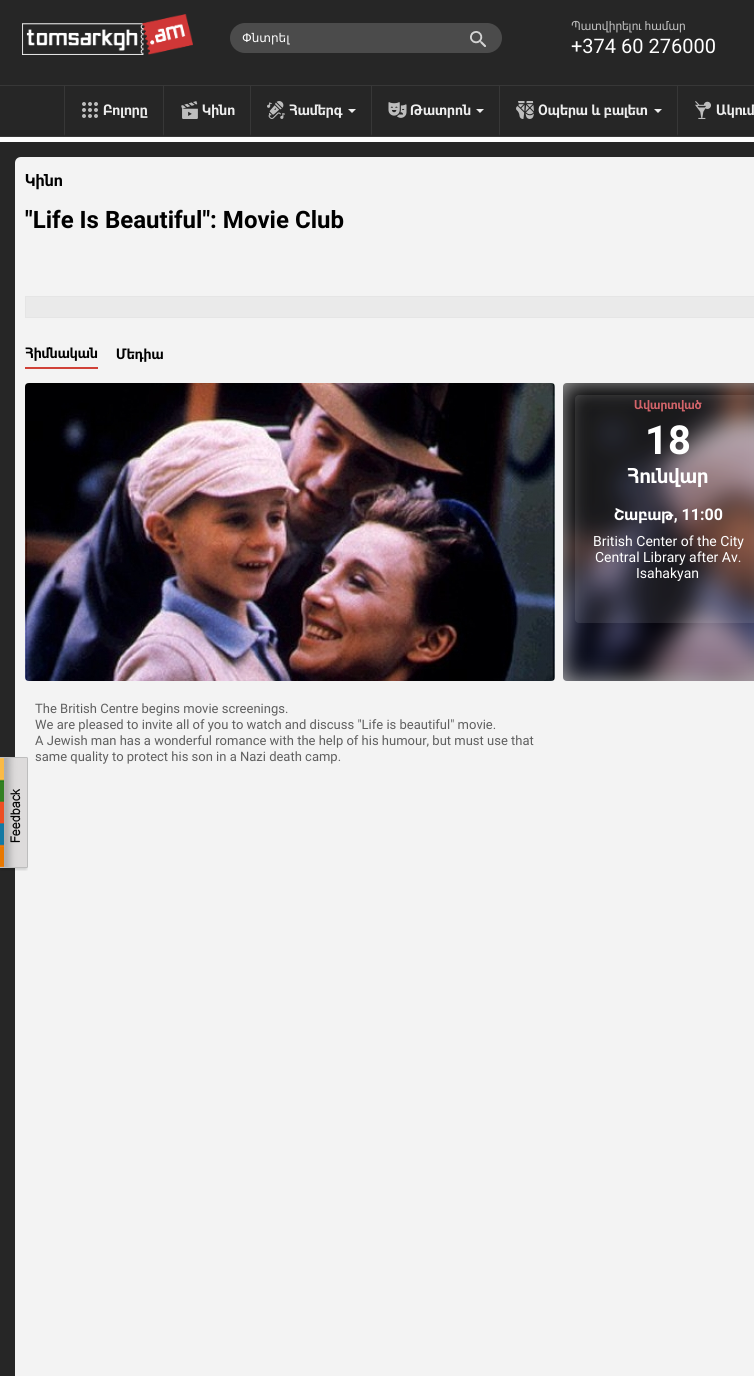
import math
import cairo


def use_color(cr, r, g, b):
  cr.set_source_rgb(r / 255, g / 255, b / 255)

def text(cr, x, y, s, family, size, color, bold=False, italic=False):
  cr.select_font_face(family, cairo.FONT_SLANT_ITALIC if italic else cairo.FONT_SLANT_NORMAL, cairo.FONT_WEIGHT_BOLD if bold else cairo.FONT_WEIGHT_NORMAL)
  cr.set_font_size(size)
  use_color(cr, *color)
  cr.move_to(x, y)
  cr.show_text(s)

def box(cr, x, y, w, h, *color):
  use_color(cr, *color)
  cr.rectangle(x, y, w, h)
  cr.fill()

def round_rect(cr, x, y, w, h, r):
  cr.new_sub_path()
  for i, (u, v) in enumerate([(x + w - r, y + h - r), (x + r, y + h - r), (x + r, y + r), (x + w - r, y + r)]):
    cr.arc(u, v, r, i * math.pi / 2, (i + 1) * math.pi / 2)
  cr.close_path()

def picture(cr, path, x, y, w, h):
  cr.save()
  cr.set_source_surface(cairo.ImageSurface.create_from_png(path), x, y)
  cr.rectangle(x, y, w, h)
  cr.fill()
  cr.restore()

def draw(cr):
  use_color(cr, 254, 254, 254)
  cr.paint()
  box(cr, 0, 0, 754, 136, 38, 38, 38)
  picture(cr, "img_01.png", 22, 14, 171, 41)
  use_color(cr, 75, 75, 75)
  round_rect(cr, 230, 23, 272, 30, 15)
  cr.fill()
  picture(cr, "img_02.png", 470, 31, 16, 16)
  box(cr, 0, 85, 754, 1, 55, 55, 55)
  box(cr, 0, 136, 754, 1, 55, 55, 55)
  cr.new_path()
  cr.move_to(164, 86)
  cr.line_to(164, 136)
  cr.line_to(163, 134)
  cr.line_to(163, 86)
  cr.close_path()
  cr.fill()
  cr.new_path()
  cr.move_to(64, 136)
  cr.line_to(64, 86)
  cr.line_to(65, 86)
  cr.line_to(65, 134)
  cr.close_path()
  cr.fill()
  picture(cr, "img_03.png", 82, 102, 16, 16)
  cr.new_path()
  cr.move_to(251, 86)
  cr.line_to(251, 136)
  cr.line_to(250, 134)
  cr.line_to(250, 86)
  cr.close_path()
  cr.fill()
  picture(cr, "img_04.png", 181, 101, 17, 18)
  cr.new_path()
  cr.move_to(372, 86)
  cr.line_to(372, 136)
  cr.line_to(371, 134)
  cr.line_to(371, 86)
  cr.close_path()
  cr.fill()
  picture(cr, "img_05.png", 267, 101, 18, 18)
  use_color(cr, 238, 238, 238)
  cr.new_path()
  cr.move_to(348, 109)
  cr.line_to(356, 109)
  cr.line_to(352, 113)
  cr.close_path()
  cr.fill()
  use_color(cr, 55, 55, 55)
  cr.new_path()
  cr.move_to(500, 86)
  cr.line_to(500, 136)
  cr.line_to(499, 134)
  cr.line_to(499, 86)
  cr.close_path()
  cr.fill()
  picture(cr, "img_06.png", 388, 102, 19, 16)
  use_color(cr, 238, 238, 238)
  cr.new_path()
  cr.move_to(476, 109)
  cr.line_to(484, 109)
  cr.line_to(480, 113)
  cr.close_path()
  cr.fill()
  use_color(cr, 55, 55, 55)
  cr.new_path()
  cr.move_to(678, 86)
  cr.line_to(678, 136)
  cr.line_to(677, 134)
  cr.line_to(677, 86)
  cr.close_path()
  cr.fill()
  picture(cr, "img_07.png", 516, 101, 18, 18)
  use_color(cr, 238, 238, 238)
  cr.new_path()
  cr.move_to(654, 109)
  cr.line_to(662, 109)
  cr.line_to(658, 113)
  cr.close_path()
  cr.fill()
  picture(cr, "img_08.png", 695, 101, 16, 18)
  box(cr, 0, 142, 754, 1234, 38, 38, 38)
  use_color(cr, 243, 243, 243)
  cr.new_path()
  cr.move_to(21, 157)
  cr.line_to(754, 157)
  cr.curve_to(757.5, 157, 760, 159.5, 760, 163)
  cr.line_to(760, 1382)
  cr.line_to(15, 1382)
  cr.line_to(15, 163)
  cr.curve_to(15, 159.5, 17.5, 157, 21, 157)
  cr.close_path()
  cr.fill()
  use_color(cr, 234, 234, 234)
  cr.rectangle(25.5, 296.5, 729, 21)
  cr.fill_preserve()
  use_color(cr, 229, 229, 229)
  cr.set_line_width(1)
  cr.stroke()
  box(cr, 25, 367, 73, 2, 208, 65, 55)
  picture(cr, "img_09.png", 25, 383, 530, 298)
  picture(cr, "img_10.png", 563, 383, 191, 298)
  cr.set_source_rgba(0, 0, 0, 0.3)
  round_rect(cr, 563, 383, 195, 298, 4)
  cr.fill()
  cr.set_source_rgba(1, 1, 1, 0.1)
  round_rect(cr, 575, 395, 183, 228, 4)
  cr.fill()
  picture(cr, "img_11.png", 0, 757, 28, 114)
  text(cr, 242, 42, "Փնտրել", "DejaVu Sans", 12, (255, 255, 255))
  text(cr, 571, 30, "Պատվիրելու համար", "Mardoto", 12, (189, 189, 189))
  text(cr, 571, 53, "+374 60 276000", "Mardoto", 20, (255, 255, 255))
  text(cr, 103, 115, "Բոլորը", "Mardoto", 14, (238, 238, 238), bold=True)
  text(cr, 202, 115, "Կինո", "Mardoto", 14, (238, 238, 238), bold=True)
  text(cr, 289, 115, "Համերգ", "Mardoto", 14, (238, 238, 238), bold=True)
  text(cr, 410, 115, "Թատրոն", "Mardoto", 14, (238, 238, 238), bold=True)
  text(cr, 538, 115, "Օպերա և բալետ", "Mardoto", 14, (238, 238, 238), bold=True)
  text(cr, 716, 115, "Ակում", "Mardoto", 14, (238, 238, 238), bold=True)
  text(cr, 25, 186, "Կինո", "Mardoto", 16, (0, 0, 0), bold=True)
  text(cr, 25, 228, "\"Life Is Beautiful\": Movie Club", "Mardoto", 24, (0, 0, 0), bold=True)
  text(cr, 25, 358, "Հիմնական", "Mardoto", 14, (0, 0, 0), bold=True)
  text(cr, 116, 359, "Մեդիա", "Mardoto", 14, (0, 0, 0), bold=True)
  text(cr, 634, 409, "Ավարտված", "Mardoto", 12, (211, 100, 106), bold=True)
  text(cr, 645, 454, "18", "Mardoto", 40, (255, 255, 255), bold=True)
  text(cr, 627, 483, "Հունվար", "Mardoto", 20, (255, 255, 255), bold=True)
  text(cr, 614, 520, "Շաբաթ, 11:00", "Mardoto", 16, (255, 255, 255), bold=True)
  text(cr, 593, 546, "British Center of the City", "Mardoto", 14, (255, 255, 255))
  text(cr, 595, 562, "Central Library after Av.", "Mardoto", 14, (255, 255, 255))
  text(cr, 636, 578, "Isahakyan", "Mardoto", 14, (255, 255, 255))
  text(cr, 35, 713, "The British Centre begins movie screenings.", "Mardoto", 13, (95, 95, 95))
  text(cr, 35, 729, "We are pleased to invite all of you to watch and discuss \"Life is beautiful\" movie.", "Mardoto", 13, (95, 95, 95))
  text(cr, 35, 745, "A Jewish man has a wonderful romance with the help of his humour, but must use that", "Mardoto", 13, (95, 95, 95))
  text(cr, 35, 761, "same quality to protect his son in a Nazi death camp.", "Mardoto", 13, (95, 95, 95))


surface = cairo.ImageSurface(cairo.FORMAT_RGB24, 754, 1376)
cr = cairo.Context(surface)
options = cairo.FontOptions()
options.set_hint_metrics(cairo.HINT_METRICS_OFF)
options.set_hint_style(cairo.HINT_STYLE_NONE)
cr.set_font_options(options)
cr.set_miter_limit(4)
draw(cr)
surface.write_to_png("out.png")
